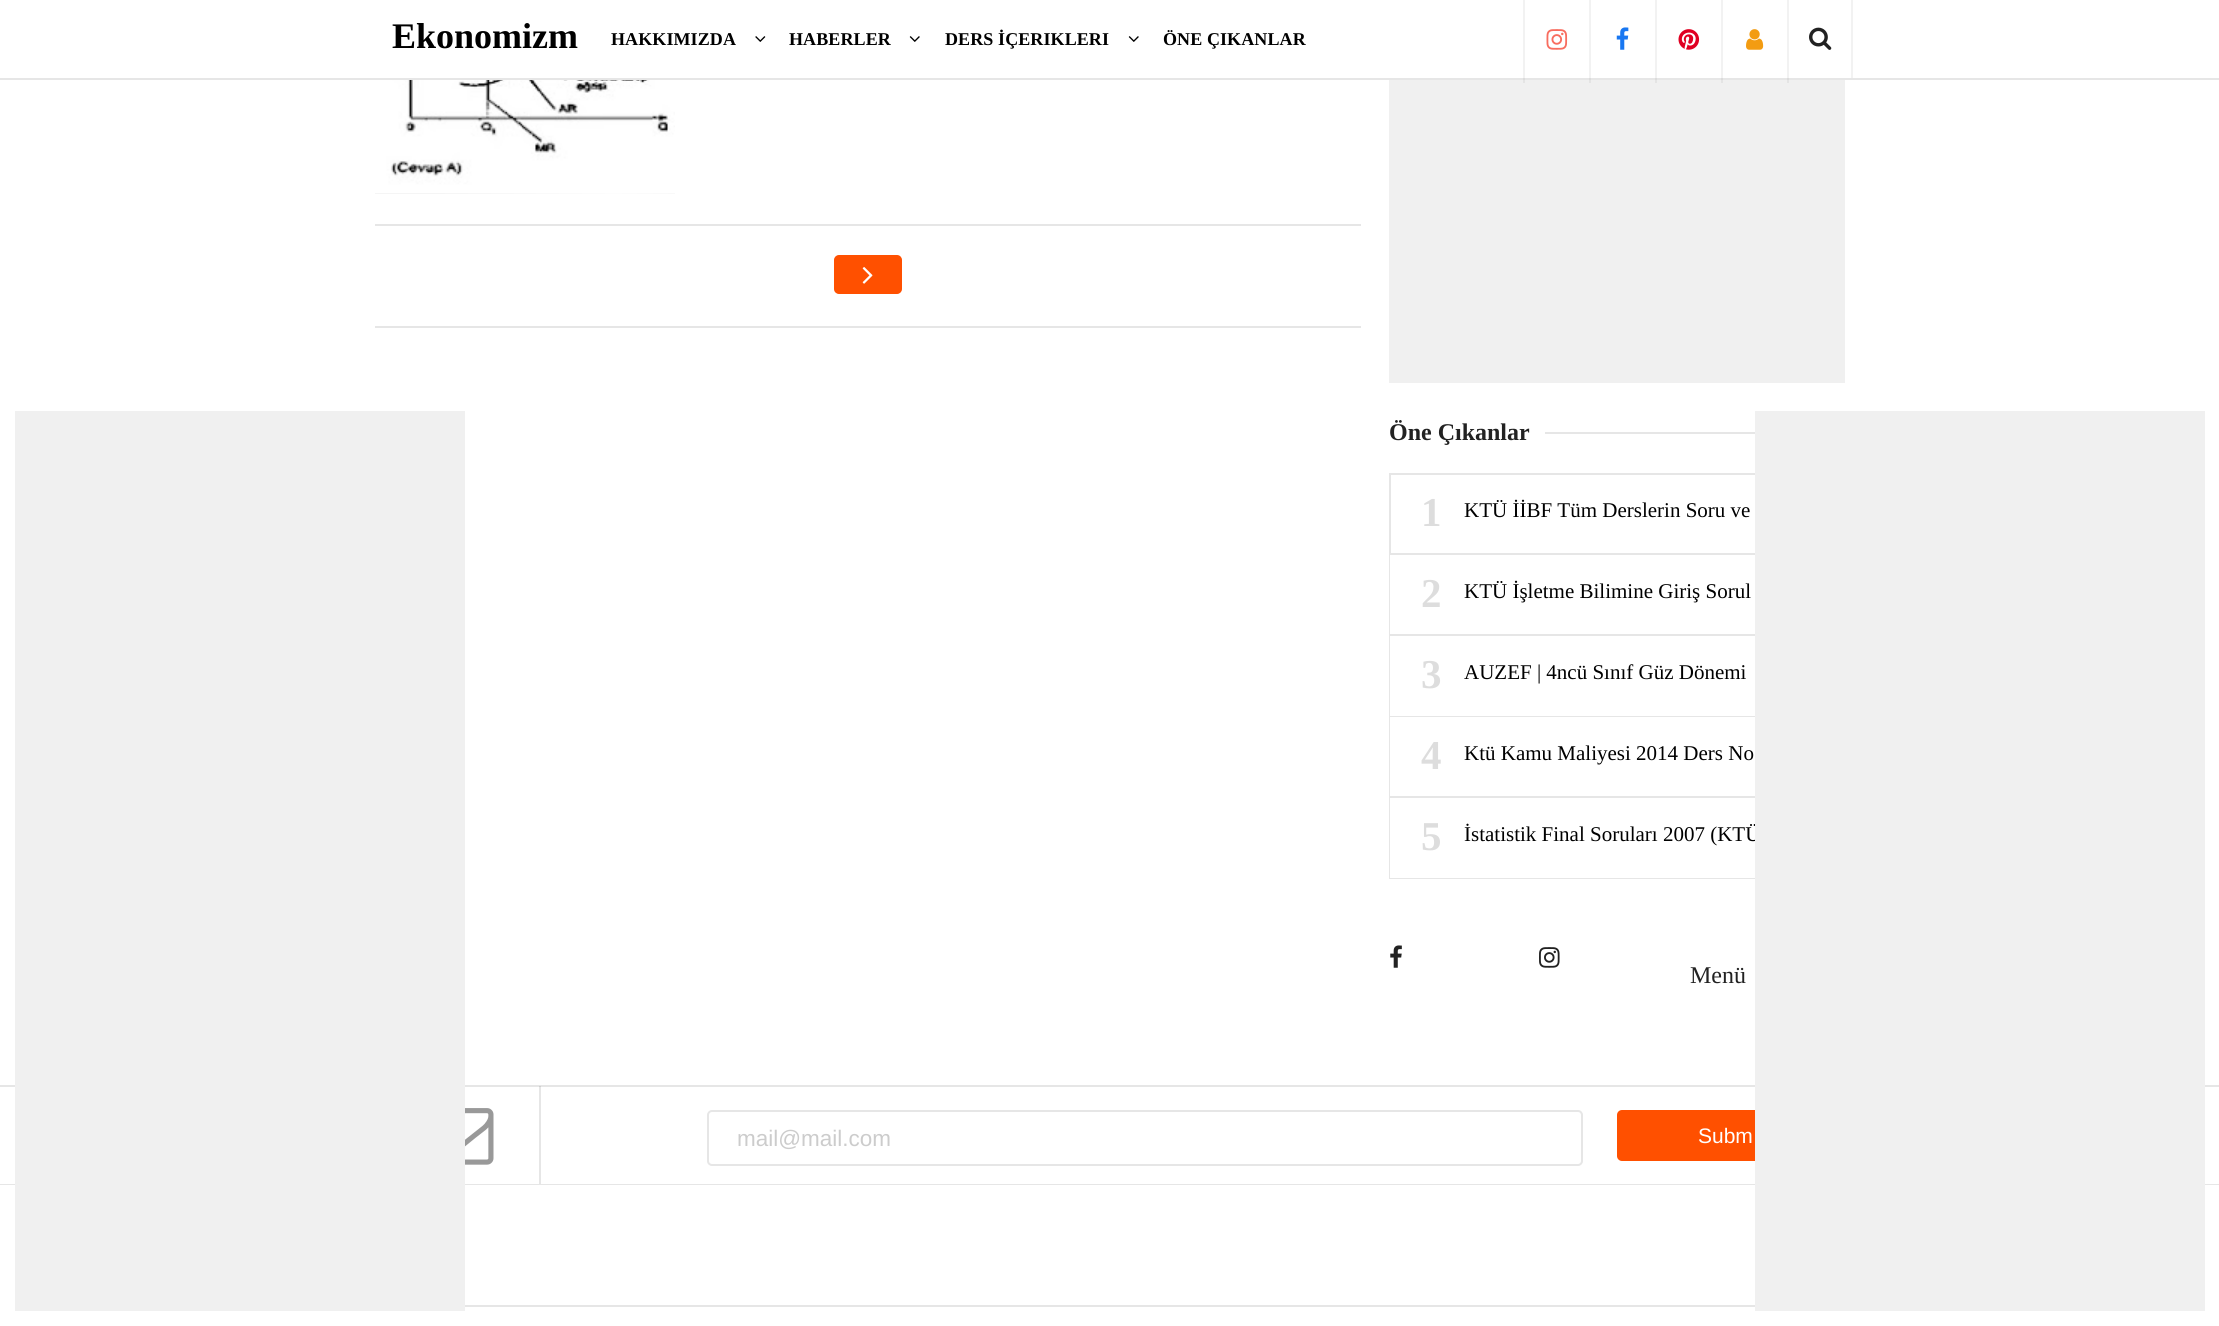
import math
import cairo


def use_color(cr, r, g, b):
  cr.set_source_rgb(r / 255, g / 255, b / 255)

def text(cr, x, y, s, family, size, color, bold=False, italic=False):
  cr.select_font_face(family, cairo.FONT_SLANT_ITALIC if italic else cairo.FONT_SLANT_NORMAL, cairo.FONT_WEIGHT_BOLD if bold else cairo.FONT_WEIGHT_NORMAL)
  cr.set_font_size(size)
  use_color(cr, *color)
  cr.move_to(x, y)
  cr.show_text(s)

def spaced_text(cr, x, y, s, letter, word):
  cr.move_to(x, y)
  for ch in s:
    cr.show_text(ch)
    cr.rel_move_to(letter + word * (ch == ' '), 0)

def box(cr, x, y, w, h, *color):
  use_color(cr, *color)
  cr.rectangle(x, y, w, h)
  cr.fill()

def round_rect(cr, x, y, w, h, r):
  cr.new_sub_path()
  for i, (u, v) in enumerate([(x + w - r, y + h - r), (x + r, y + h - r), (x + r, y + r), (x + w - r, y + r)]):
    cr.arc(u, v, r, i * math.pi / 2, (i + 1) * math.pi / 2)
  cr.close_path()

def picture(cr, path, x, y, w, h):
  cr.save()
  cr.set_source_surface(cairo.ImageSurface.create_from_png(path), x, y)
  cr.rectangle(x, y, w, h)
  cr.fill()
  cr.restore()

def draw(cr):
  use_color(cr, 255, 255, 255)
  cr.paint()
  box(cr, 539, 1086, 2, 98, 230, 230, 230)
  box(cr, 1523, 0, 2, 80, 242, 242, 242)
  box(cr, 1589, 0, 2, 80, 242, 242, 242)
  box(cr, 1655, 0, 2, 80, 242, 242, 242)
  box(cr, 1721, 0, 2, 80, 242, 242, 242)
  box(cr, 1787, 0, 2, 80, 242, 242, 242)
  box(cr, 0, 78, 2219, 2, 230, 230, 230)
  box(cr, 1523, 78, 2, 2, 219, 219, 219)
  box(cr, 1589, 78, 2, 2, 219, 219, 219)
  box(cr, 1655, 78, 2, 2, 219, 219, 219)
  box(cr, 1721, 78, 2, 2, 219, 219, 219)
  box(cr, 1787, 78, 2, 2, 219, 219, 219)
  picture(cr, "img_01.png", 755, 36, 11, 6)
  picture(cr, "img_02.png", 909, 36, 11, 6)
  picture(cr, "img_02.png", 1128, 36, 11, 6)
  picture(cr, "img_03.png", 1546, 29, 22, 21)
  picture(cr, "img_04.png", 1616, 27, 13, 23)
  picture(cr, "img_05.png", 1678, 29, 22, 21)
  picture(cr, "img_06.png", 1746, 29, 18, 21)
  box(cr, 1851, 0, 2, 78, 242, 242, 242)
  picture(cr, "img_07.png", 1809, 27, 23, 23)
  box(cr, 0, 1085, 2219, 2, 230, 230, 230)
  box(cr, 0, 1184, 2219, 1, 230, 230, 230)
  box(cr, 15, 411, 450, 900, 240, 240, 240)
  gradient = cairo.LinearGradient(375, 44, 1575, 43)
  gradient.add_color_stop_rgba(0.05, 0.961, 0.961, 0.961, 1)
  gradient.add_color_stop_rgba(0.2, 0.992, 0.992, 0.992, 1)
  gradient.add_color_stop_rgba(0.3, 0.961, 0.961, 0.961, 1)
  cr.set_source(gradient)
  cr.rectangle(375, 193, 300, 1)
  cr.fill()
  picture(cr, "img_08.png", 375, 80, 300, 113)
  box(cr, 375, 224, 986, 2, 230, 230, 230)
  box(cr, 375, 326, 986, 2, 230, 230, 230)
  use_color(cr, 255, 80, 0)
  round_rect(cr, 835, 256, 66, 37, 4)
  cr.fill_preserve()
  cr.stroke()
  picture(cr, "img_09.png", 862, 267, 11, 17)
  box(cr, 1389, 80, 456, 303, 240, 240, 240)
  box(cr, 1523, 80, 2, 3, 228, 228, 228)
  box(cr, 1589, 80, 2, 3, 228, 228, 228)
  box(cr, 1655, 80, 2, 3, 228, 228, 228)
  box(cr, 1721, 80, 2, 3, 228, 228, 228)
  box(cr, 1787, 80, 2, 3, 228, 228, 228)
  box(cr, 1545, 432, 210, 2, 230, 230, 230)
  cr.rectangle(1390, 474, 454, 80)
  cr.stroke()
  cr.set_source_rgba(0, 0, 0, 0.1)
  cr.new_path()
  cr.move_to(1845, 636)
  cr.line_to(1389, 636)
  cr.line_to(1390, 634)
  cr.line_to(1844, 634)
  cr.close_path()
  cr.fill()
  cr.new_path()
  cr.move_to(1389, 636)
  cr.line_to(1389, 555)
  cr.line_to(1390, 555)
  cr.line_to(1390, 634)
  cr.close_path()
  cr.fill()
  cr.new_path()
  cr.move_to(1845, 717)
  cr.line_to(1389, 717)
  cr.line_to(1390, 716)
  cr.line_to(1844, 716)
  cr.close_path()
  cr.fill()
  cr.new_path()
  cr.move_to(1389, 717)
  cr.line_to(1389, 636)
  cr.line_to(1390, 636)
  cr.line_to(1390, 716)
  cr.close_path()
  cr.fill()
  cr.new_path()
  cr.move_to(1845, 798)
  cr.line_to(1389, 798)
  cr.line_to(1390, 796)
  cr.line_to(1844, 796)
  cr.close_path()
  cr.fill()
  cr.new_path()
  cr.move_to(1389, 798)
  cr.line_to(1389, 717)
  cr.line_to(1390, 717)
  cr.line_to(1390, 796)
  cr.close_path()
  cr.fill()
  cr.new_path()
  cr.move_to(1845, 879)
  cr.line_to(1389, 879)
  cr.line_to(1390, 878)
  cr.line_to(1844, 878)
  cr.close_path()
  cr.fill()
  cr.new_path()
  cr.move_to(1389, 879)
  cr.line_to(1389, 798)
  cr.line_to(1390, 798)
  cr.line_to(1390, 878)
  cr.close_path()
  cr.fill()
  picture(cr, "img_10.png", 1390, 945, 12, 23)
  picture(cr, "img_11.png", 1539, 947, 21, 21)
  box(cr, 539, 1086, 2, 1, 207, 207, 207)
  picture(cr, "img_12.png", 465, 1108, 29, 57)
  round_rect(cr, 708, 1111, 874, 54, 4)
  use_color(cr, 230, 230, 230)
  cr.stroke()
  use_color(cr, 255, 80, 0)
  round_rect(cr, 1617, 1110, 228, 51, 5)
  cr.fill()
  box(cr, 465, 1305, 1290, 2, 230, 230, 230)
  text(cr, 392, 48, "Ekonomizm", "Liberation Serif", 36, (0, 0, 0), bold=True)
  cr.set_font_size(18)
  spaced_text(cr, 611, 45, "HAKKIMIZDA", 0.1, 0)
  spaced_text(cr, 789, 45, "HABERLER", 0.1, 0)
  spaced_text(cr, 945, 45, "DERS İÇERIKLERI", 0.1, 0)
  spaced_text(cr, 1163, 45, "ÖNE ÇIKANLAR", 0.1, 0)
  text(cr, 1389, 440, "Öne Çıkanlar", "Liberation Serif", 24, (34, 34, 34), bold=True)
  text(cr, 1421, 526, "1", "Liberation Serif", 41, (221, 221, 221), bold=True)
  text(cr, 1464, 517, "KTÜ İİBF Tüm Derslerin Soru ve", "Liberation Serif", 21, (0, 0, 0))
  text(cr, 1421, 607, "2", "Liberation Serif", 41, (221, 221, 221), bold=True)
  text(cr, 1464, 598, "KTÜ İşletme Bilimine Giriş Sorul", "Liberation Serif", 21, (0, 0, 0))
  text(cr, 1421, 688, "3", "Liberation Serif", 41, (221, 221, 221), bold=True)
  text(cr, 1464, 679, "AUZEF | 4ncü Sınıf Güz Dönemi", "Liberation Serif", 21, (0, 0, 0))
  text(cr, 1421, 769, "4", "Liberation Serif", 41, (221, 221, 221), bold=True)
  text(cr, 1464, 760, "Ktü Kamu Maliyesi 2014 Ders No", "Liberation Serif", 21, (0, 0, 0))
  text(cr, 1421, 850, "5", "Liberation Serif", 41, (221, 221, 221), bold=True)
  text(cr, 1464, 841, "İstatistik Final Soruları 2007 (KTÜ", "Liberation Serif", 21, (0, 0, 0))
  box(cr, 1755, 411, 450, 900, 240, 240, 240)
  text(cr, 1690, 983, "Menü", "Liberation Serif", 24, (34, 34, 34))
  text(cr, 737, 1146, "mail@mail.com", "Liberation Sans", 22.5, (204, 204, 204))
  text(cr, 1698, 1143, "Subm", "Liberation Sans", 21, (255, 255, 255))


surface = cairo.ImageSurface(cairo.FORMAT_RGB24, 2219, 1326)
cr = cairo.Context(surface)
options = cairo.FontOptions()
options.set_hint_metrics(cairo.HINT_METRICS_OFF)
options.set_hint_style(cairo.HINT_STYLE_NONE)
cr.set_font_options(options)
cr.set_miter_limit(4)
draw(cr)
surface.write_to_png("out.png")
